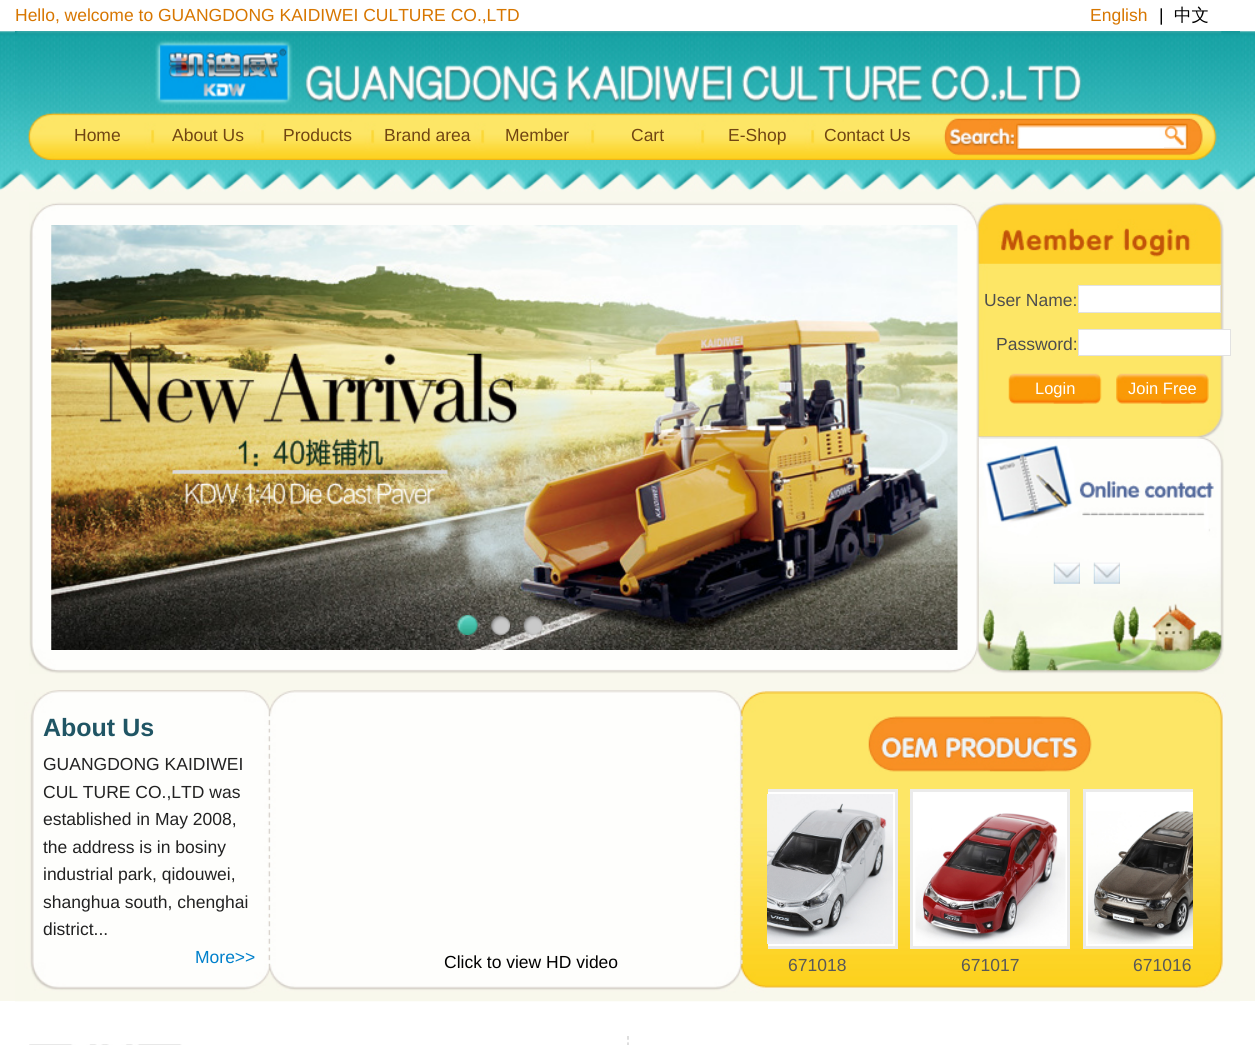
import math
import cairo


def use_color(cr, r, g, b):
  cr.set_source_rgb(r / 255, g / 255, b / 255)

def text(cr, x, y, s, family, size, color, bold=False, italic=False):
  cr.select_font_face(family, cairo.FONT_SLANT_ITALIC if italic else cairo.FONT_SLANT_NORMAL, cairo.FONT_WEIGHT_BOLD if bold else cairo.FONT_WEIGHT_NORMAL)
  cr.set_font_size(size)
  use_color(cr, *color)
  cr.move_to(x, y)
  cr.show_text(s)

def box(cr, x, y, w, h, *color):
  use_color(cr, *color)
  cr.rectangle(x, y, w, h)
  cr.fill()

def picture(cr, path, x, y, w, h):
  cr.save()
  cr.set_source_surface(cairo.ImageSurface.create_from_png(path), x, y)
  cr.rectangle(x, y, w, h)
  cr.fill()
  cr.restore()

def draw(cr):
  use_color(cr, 255, 255, 255)
  cr.paint()
  picture(cr, "img_01.png", 0, 31, 1255, 169)
  picture(cr, "img_02.png", 15, 31, 1225, 80)
  picture(cr, "img_03.png", 16, 111, 924, 49)
  picture(cr, "img_04.png", 940, 111, 300, 49)
  box(cr, 1020, 139, 144, 9, 255, 255, 255)
  box(cr, 0, 200, 1255, 801, 249, 248, 237)
  picture(cr, "img_05.png", 29, 202, 949, 472)
  picture(cr, "img_06.png", 51, 225, 907, 425)
  picture(cr, "img_07.png", 457, 615, 21, 20)
  picture(cr, "img_08.png", 491, 616, 19, 19)
  picture(cr, "img_09.png", 523, 616, 20, 19)
  picture(cr, "img_10.png", 977, 202, 247, 236)
  use_color(cr, 255, 255, 255)
  cr.rectangle(1078.5, 285.5, 142, 27)
  cr.fill_preserve()
  use_color(cr, 226, 226, 226)
  cr.set_line_width(1)
  cr.stroke()
  use_color(cr, 255, 255, 255)
  cr.rectangle(1078.5, 329.5, 152, 26)
  cr.fill_preserve()
  use_color(cr, 226, 226, 226)
  cr.stroke()
  picture(cr, "img_11.png", 1008, 373, 94, 31)
  picture(cr, "img_12.png", 1116, 373, 93, 31)
  picture(cr, "img_13.png", 977, 437, 247, 237)
  picture(cr, "img_14.png", 1053, 562, 27, 22)
  picture(cr, "img_15.png", 1093, 562, 27, 22)
  picture(cr, "img_16.png", 15, 690, 1225, 312)
  picture(cr, "img_17.png", 868, 716, 224, 56)
  box(cr, 768, 792, 127, 154, 255, 255, 255)
  cr.save()
  cr.rectangle(768, 789, 425, 186)
  cr.clip()
  cr.rectangle(739.5, 790.5, 157, 157)
  use_color(cr, 235, 235, 235)
  cr.set_line_width(3)
  cr.stroke()
  cr.restore()
  picture(cr, "img_18.png", 767, 794, 126, 150)
  cr.rectangle(911.5, 790.5, 157, 157)
  cr.fill_preserve()
  use_color(cr, 235, 235, 235)
  cr.set_line_width(3)
  cr.stroke()
  picture(cr, "img_19.png", 915, 813, 151, 131)
  box(cr, 1086, 792, 107, 154, 255, 255, 255)
  cr.save()
  cr.rectangle(768, 789, 425, 186)
  cr.clip()
  cr.rectangle(1084.5, 790.5, 157, 157)
  use_color(cr, 235, 235, 235)
  cr.stroke()
  cr.restore()
  picture(cr, "img_20.png", 1088, 811, 105, 133)
  cr.new_path()
  cr.move_to(628, 1036)
  cr.line_to(628, 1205)
  use_color(cr, 200, 200, 200)
  cr.set_line_width(1.2)
  cr.set_dash([3.75, 2.6])
  cr.stroke()
  picture(cr, "img_21.png", 29, 1044, 153, 1)
  text(cr, 15, 21, "Hello, welcome to GUANGDONG KAIDIWEI CULTURE CO.,LTD", "Liberation Sans", 17.5, (215, 118, 0))
  text(cr, 1090, 21, "English", "Liberation Sans", 17.5, (215, 118, 0))
  text(cr, 1159, 21, "|", "Liberation Sans", 17.5, (0, 0, 0))
  text(cr, 1174, 21, "中文", "WenQuanYi Zen Hei Medium", 17.5, (0, 0, 0))
  text(cr, 74, 141, "Home", "Liberation Sans", 17.5, (113, 70, 18))
  text(cr, 172, 141, "About Us", "Liberation Sans", 17.5, (113, 70, 18))
  text(cr, 283, 141, "Products", "Liberation Sans", 17.5, (113, 70, 18))
  text(cr, 384, 141, "Brand area", "Liberation Sans", 17.5, (113, 70, 18))
  text(cr, 505, 141, "Member", "Liberation Sans", 17.5, (113, 70, 18))
  text(cr, 631, 141, "Cart", "Liberation Sans", 17.5, (113, 70, 18))
  text(cr, 728, 141, "E-Shop", "Liberation Sans", 17.5, (113, 70, 18))
  text(cr, 824, 141, "Contact Us", "Liberation Sans", 17.5, (113, 70, 18))
  text(cr, 984, 306, "User Name:", "Liberation Sans", 17.5, (78, 78, 78))
  text(cr, 996, 350, "Password:", "Liberation Sans", 17.5, (78, 78, 78))
  text(cr, 1035, 394, "Login", "Liberation Sans", 16.5, (255, 255, 255))
  text(cr, 1128, 394, "Join Free", "Liberation Sans", 16.5, (255, 255, 255))
  text(cr, 43, 736, "About Us", "Liberation Sans", 25, (32, 85, 100), bold=True)
  text(cr, 43, 770, "GUANGDONG KAIDIWEI", "Liberation Sans", 17.5, (34, 34, 34))
  text(cr, 43, 798, "CUL TURE CO.,LTD was", "Liberation Sans", 17.5, (34, 34, 34))
  text(cr, 43, 825, "established in May 2008,", "Liberation Sans", 17.5, (34, 34, 34))
  text(cr, 43, 853, "the address is in bosiny", "Liberation Sans", 17.5, (34, 34, 34))
  text(cr, 43, 880, "industrial park, qidouwei,", "Liberation Sans", 17.5, (34, 34, 34))
  text(cr, 43, 908, "shanghua south, chenghai", "Liberation Sans", 17.5, (34, 34, 34))
  text(cr, 43, 935, "district...", "Liberation Sans", 17.5, (34, 34, 34))
  text(cr, 195, 963, "More>>", "Liberation Sans", 17.5, (0, 128, 203))
  text(cr, 444, 968, "Click to view HD video", "Liberation Sans", 17.5, (0, 0, 0))
  text(cr, 788, 971, "671018", "Liberation Sans", 17.5, (88, 88, 88))
  text(cr, 961, 971, "671017", "Liberation Sans", 17.5, (88, 88, 88))
  text(cr, 1133, 971, "671016", "Liberation Sans", 17.5, (88, 88, 88))


surface = cairo.ImageSurface(cairo.FORMAT_RGB24, 1255, 1045)
cr = cairo.Context(surface)
options = cairo.FontOptions()
options.set_hint_metrics(cairo.HINT_METRICS_OFF)
options.set_hint_style(cairo.HINT_STYLE_NONE)
cr.set_font_options(options)
cr.set_miter_limit(4)
draw(cr)
surface.write_to_png("out.png")
